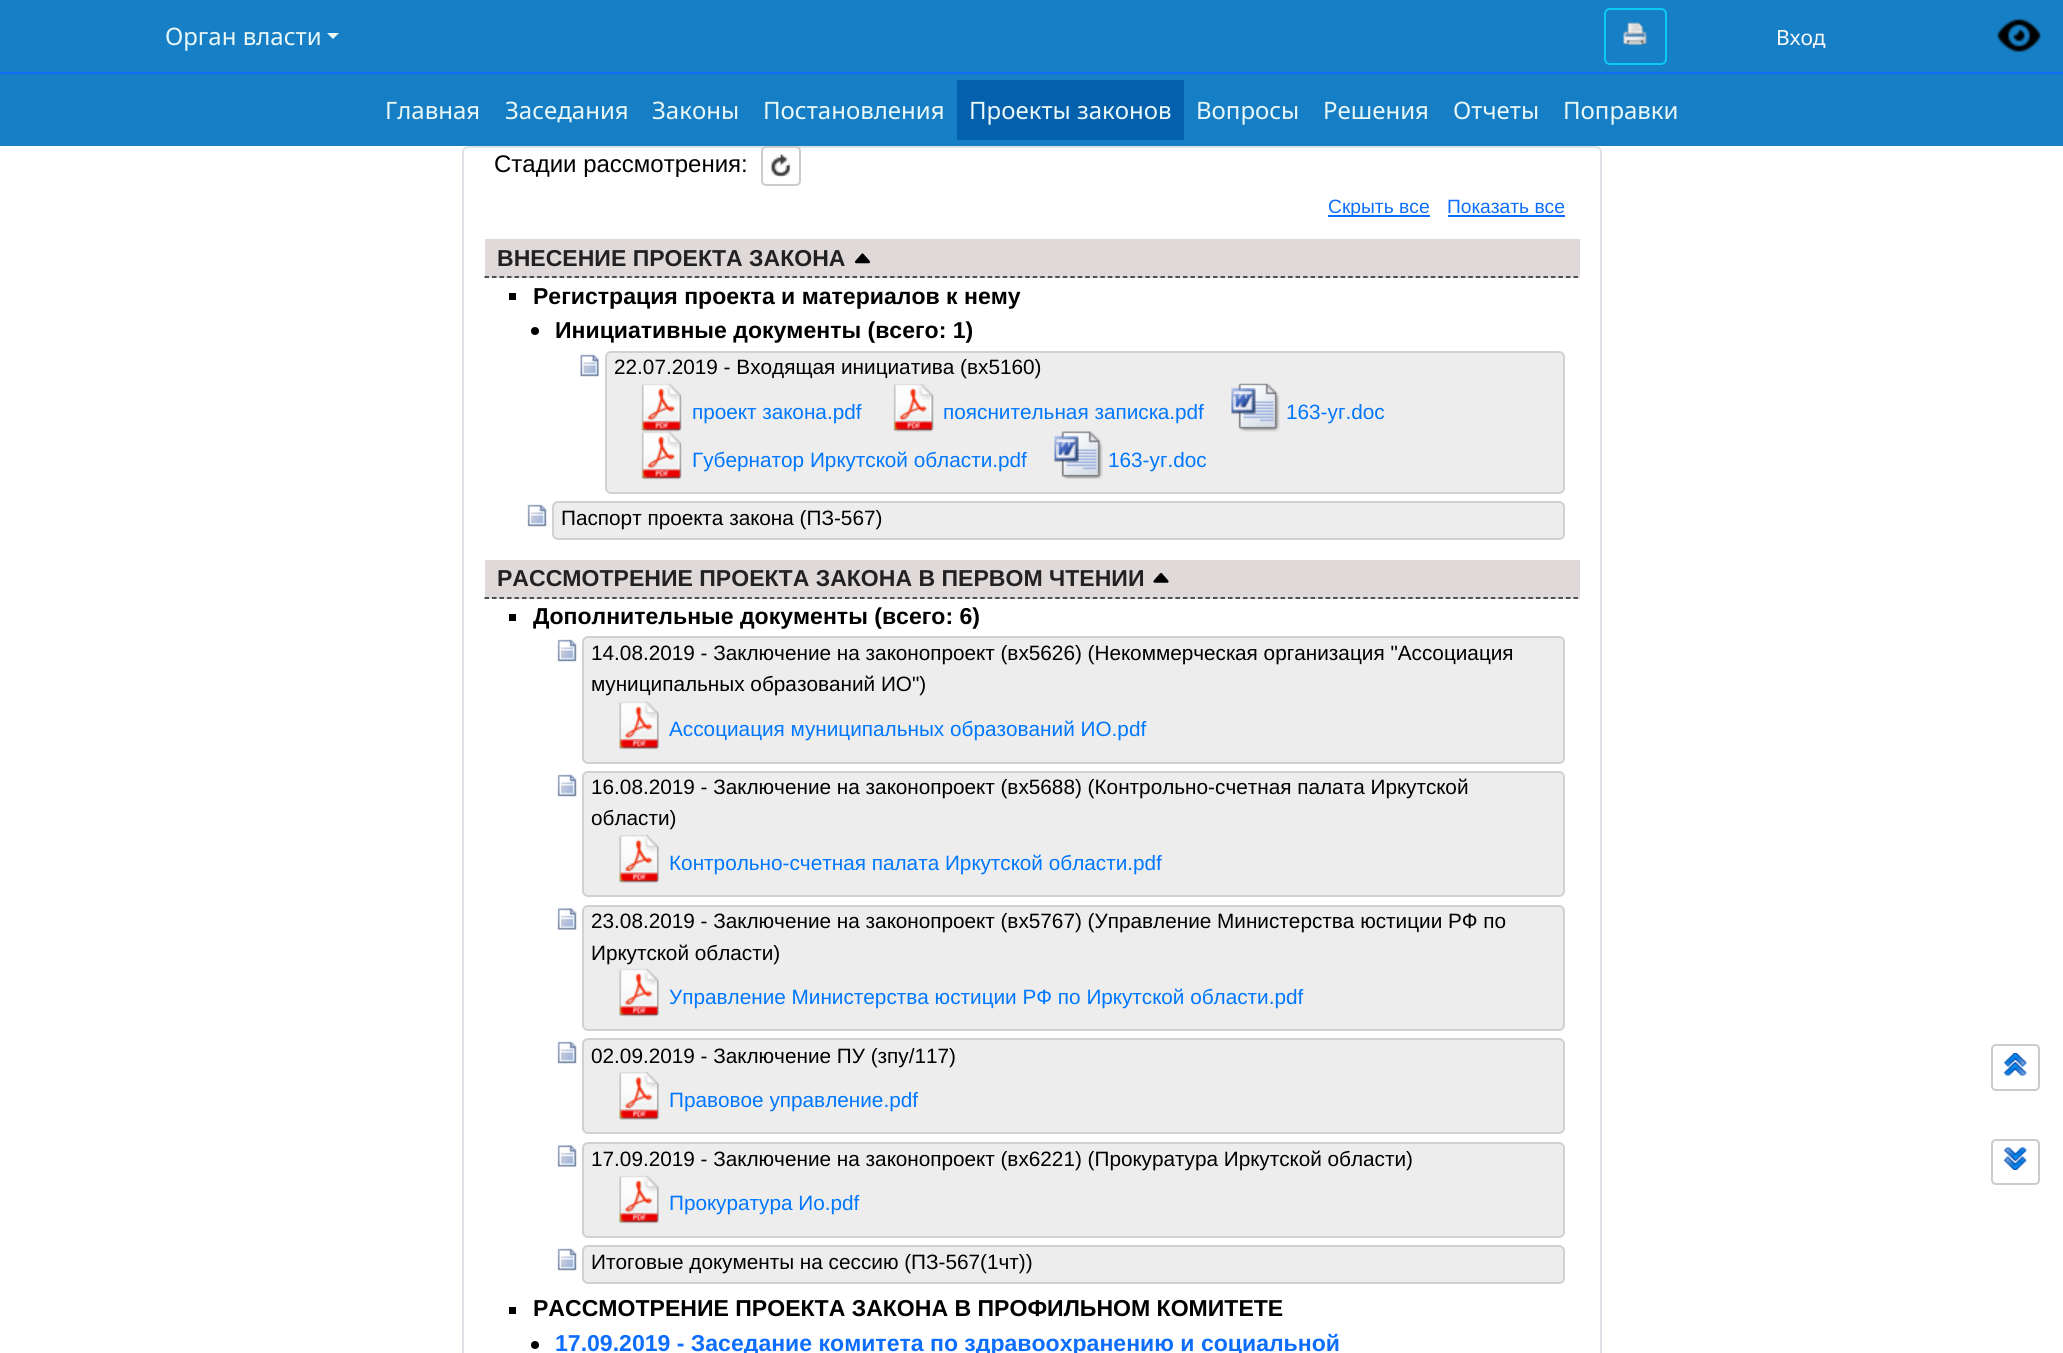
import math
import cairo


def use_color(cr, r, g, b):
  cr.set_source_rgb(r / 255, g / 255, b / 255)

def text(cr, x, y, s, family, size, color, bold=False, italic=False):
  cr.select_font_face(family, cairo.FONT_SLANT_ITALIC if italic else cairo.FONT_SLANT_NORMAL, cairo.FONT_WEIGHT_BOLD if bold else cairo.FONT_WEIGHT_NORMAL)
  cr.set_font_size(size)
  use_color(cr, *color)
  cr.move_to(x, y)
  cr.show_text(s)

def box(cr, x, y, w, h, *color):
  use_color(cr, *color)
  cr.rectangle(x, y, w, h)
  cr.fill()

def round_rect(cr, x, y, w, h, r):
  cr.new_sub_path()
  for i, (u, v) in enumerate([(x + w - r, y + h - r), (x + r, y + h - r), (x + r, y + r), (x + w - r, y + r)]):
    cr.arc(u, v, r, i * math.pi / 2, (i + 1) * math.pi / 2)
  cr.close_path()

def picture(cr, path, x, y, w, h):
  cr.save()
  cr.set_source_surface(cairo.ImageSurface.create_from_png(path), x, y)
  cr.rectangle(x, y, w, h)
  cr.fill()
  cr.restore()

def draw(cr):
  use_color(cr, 255, 255, 255)
  cr.paint()
  box(cr, 0, 0, 2063, 72, 23, 127, 197)
  box(cr, 0, 72, 2063, 2, 13, 110, 253)
  use_color(cr, 234, 248, 247)
  cr.new_path()
  cr.move_to(327, 33)
  cr.line_to(339, 33)
  cr.line_to(333, 39)
  cr.close_path()
  cr.fill()
  round_rect(cr, 1605, 9, 61, 55, 5)
  use_color(cr, 13, 202, 240)
  cr.stroke()
  picture(cr, "img_01.png", 1622, 22, 25, 23)
  picture(cr, "img_02.png", 1997, 18, 44, 35)
  box(cr, 0, 74, 2063, 72, 21, 126, 197)
  box(cr, 957, 80, 227, 60, 2, 96, 173)
  round_rect(cr, 463, 147, 1138, 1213, 5)
  use_color(cr, 222, 226, 230)
  cr.stroke()
  round_rect(cr, 762, 147, 38, 38, 4)
  use_color(cr, 207, 203, 203)
  cr.stroke()
  picture(cr, "img_03.png", 770, 154, 22, 23)
  box(cr, 1328, 215, 102, 2, 13, 110, 253)
  box(cr, 1448, 215, 117, 2, 13, 110, 253)
  box(cr, 485, 239, 1095, 39, 223, 217, 217)
  cr.new_path()
  cr.move_to(484.5, 277)
  cr.line_to(1579.5, 277)
  use_color(cr, 33, 33, 33)
  cr.set_line_width(1.5)
  cr.set_dash([4.5, 3.01])
  cr.stroke()
  picture(cr, "img_04.png", 854, 253, 17, 11)
  box(cr, 509, 293, 7, 7, 0, 0, 0)
  cr.arc(535, 331, 4, 0, 2 * math.pi)
  cr.fill()
  picture(cr, "img_05.png", 580, 354, 19, 23)
  use_color(cr, 238, 237, 237)
  round_rect(cr, 606, 352, 958, 141, 5)
  cr.fill_preserve()
  use_color(cr, 210, 209, 209)
  cr.set_line_width(2)
  cr.set_dash([])
  cr.stroke()
  picture(cr, "img_06.png", 641, 383, 41, 49)
  picture(cr, "img_07.png", 893, 383, 41, 49)
  picture(cr, "img_08.png", 1231, 383, 49, 49)
  picture(cr, "img_09.png", 641, 431, 41, 49)
  picture(cr, "img_10.png", 1054, 431, 49, 48)
  picture(cr, "img_11.png", 527, 504, 20, 23)
  use_color(cr, 238, 237, 237)
  round_rect(cr, 553, 502, 1011, 37, 5)
  cr.fill_preserve()
  use_color(cr, 210, 209, 209)
  cr.stroke()
  box(cr, 485, 560, 1095, 39, 223, 217, 217)
  cr.new_path()
  cr.move_to(484.5, 598)
  cr.line_to(1579.5, 598)
  use_color(cr, 33, 33, 33)
  cr.set_line_width(1.5)
  cr.set_dash([4.5, 3.01])
  cr.stroke()
  picture(cr, "img_12.png", 1153, 573, 16, 10)
  box(cr, 509, 614, 7, 7, 0, 0, 0)
  picture(cr, "img_13.png", 557, 639, 20, 23)
  use_color(cr, 238, 237, 237)
  round_rect(cr, 583, 637, 981, 126, 5)
  cr.fill_preserve()
  use_color(cr, 210, 209, 209)
  cr.set_line_width(2)
  cr.set_dash([])
  cr.stroke()
  picture(cr, "img_14.png", 619, 701, 40, 49)
  picture(cr, "img_13.png", 557, 774, 20, 23)
  use_color(cr, 238, 237, 237)
  round_rect(cr, 583, 772, 981, 124, 5)
  cr.fill_preserve()
  use_color(cr, 210, 209, 209)
  cr.stroke()
  picture(cr, "img_15.png", 619, 835, 40, 48)
  picture(cr, "img_16.png", 557, 908, 20, 22)
  use_color(cr, 238, 237, 237)
  round_rect(cr, 583, 906, 981, 124, 5)
  cr.fill_preserve()
  use_color(cr, 210, 209, 209)
  cr.stroke()
  picture(cr, "img_14.png", 619, 968, 40, 49)
  picture(cr, "img_13.png", 557, 1041, 20, 23)
  use_color(cr, 238, 237, 237)
  round_rect(cr, 583, 1039, 981, 94, 5)
  cr.fill_preserve()
  use_color(cr, 210, 209, 209)
  cr.stroke()
  picture(cr, "img_15.png", 619, 1072, 40, 48)
  picture(cr, "img_16.png", 557, 1145, 20, 22)
  use_color(cr, 238, 237, 237)
  round_rect(cr, 583, 1143, 981, 94, 5)
  cr.fill_preserve()
  use_color(cr, 210, 209, 209)
  cr.stroke()
  picture(cr, "img_14.png", 619, 1175, 40, 49)
  picture(cr, "img_13.png", 557, 1248, 20, 23)
  use_color(cr, 238, 237, 237)
  round_rect(cr, 583, 1246, 981, 37, 5)
  cr.fill_preserve()
  use_color(cr, 210, 209, 209)
  cr.stroke()
  box(cr, 509, 1307, 7, 7, 0, 0, 0)
  cr.arc(535, 1345, 4, 0, 2 * math.pi)
  cr.fill()
  round_rect(cr, 1992, 1045, 47, 45, 4)
  use_color(cr, 207, 203, 203)
  cr.stroke()
  picture(cr, "img_17.png", 2004, 1053, 23, 23)
  round_rect(cr, 1992, 1140, 47, 44, 4)
  cr.stroke()
  picture(cr, "img_18.png", 2004, 1147, 23, 23)
  text(cr, 165, 45, "Орган власти", "Noto Sans", 24, (234, 248, 247))
  text(cr, 1776, 45, "Вход", "Noto Sans", 21, (248, 249, 250))
  text(cr, 385, 119, "Главная", "Noto Sans", 24, (234, 248, 247))
  text(cr, 505, 119, "Заседания", "Noto Sans", 24, (234, 248, 247))
  text(cr, 652, 119, "Законы", "Noto Sans", 24, (234, 248, 247))
  text(cr, 763, 119, "Постановления", "Noto Sans", 24, (234, 248, 247))
  text(cr, 969, 119, "Проекты законов", "Noto Sans", 24, (234, 248, 247))
  text(cr, 1196, 119, "Вопросы", "Noto Sans", 24, (234, 248, 247))
  text(cr, 1323, 119, "Решения", "Noto Sans", 24, (234, 248, 247))
  text(cr, 1453, 119, "Отчеты", "Noto Sans", 24, (234, 248, 247))
  text(cr, 1563, 119, "Поправки", "Noto Sans", 24, (234, 248, 247))
  text(cr, 494, 172, "Стадии рассмотрения:", "Liberation Sans", 24, (0, 0, 0))
  text(cr, 1328, 213, "Скрыть все", "Liberation Sans", 19.25, (13, 110, 253))
  text(cr, 1447, 213, "Показать все", "Liberation Sans", 19.25, (13, 110, 253))
  text(cr, 497, 266, "ВНЕСЕНИЕ ПРОЕКТА ЗАКОНА", "Liberation Sans", 23.05, (33, 33, 33), bold=True)
  text(cr, 533, 304, "Регистрация проекта и материалов к нему", "Liberation Sans", 23.05, (0, 0, 0), bold=True)
  text(cr, 555, 338, "Инициативные документы (всего: 1)", "Liberation Sans", 23.05, (0, 0, 0), bold=True)
  text(cr, 614, 374, "22.07.2019 - Входящая инициатива (вх5160)", "Liberation Sans", 20.75, (0, 0, 0))
  text(cr, 692, 419, "проект закона.pdf", "Liberation Sans", 20.75, (0, 119, 255))
  text(cr, 943, 419, "пояснительная записка.pdf", "Liberation Sans", 20.75, (0, 119, 255))
  text(cr, 1286, 419, "163-уг.doc", "Liberation Sans", 20.75, (0, 119, 255))
  text(cr, 692, 467, "Губернатор Иркутской области.pdf", "Liberation Sans", 20.75, (0, 119, 255))
  text(cr, 1108, 467, "163-уг.doc", "Liberation Sans", 20.75, (0, 119, 255))
  text(cr, 561, 525, "Паспорт проекта закона (ПЗ-567)", "Liberation Sans", 20.75, (0, 0, 0))
  text(cr, 497, 586, "РАССМОТРЕНИЕ ПРОЕКТА ЗАКОНА В ПЕРВОМ ЧТЕНИИ", "Liberation Sans", 23.05, (33, 33, 33), bold=True)
  text(cr, 533, 624, "Дополнительные документы (всего: 6)", "Liberation Sans", 23.05, (0, 0, 0), bold=True)
  text(cr, 591, 660, "14.08.2019 - Заключение на законопроект (вх5626) (Некоммерческая организация \"Ассоциация", "Liberation Sans", 20.75, (0, 0, 0))
  text(cr, 591, 691, "муниципальных образований ИО\")", "Liberation Sans", 20.75, (0, 0, 0))
  text(cr, 669, 736, "Ассоциация муниципальных образований ИО.pdf", "Liberation Sans", 20.75, (0, 119, 255))
  text(cr, 591, 794, "16.08.2019 - Заключение на законопроект (вх5688) (Контрольно-счетная палата Иркутской", "Liberation Sans", 20.75, (0, 0, 0))
  text(cr, 591, 825, "области)", "Liberation Sans", 20.75, (0, 0, 0))
  text(cr, 669, 870, "Контрольно-счетная палата Иркутской области.pdf", "Liberation Sans", 20.75, (0, 119, 255))
  text(cr, 591, 928, "23.08.2019 - Заключение на законопроект (вх5767) (Управление Министерства юстиции РФ по", "Liberation Sans", 20.75, (0, 0, 0))
  text(cr, 591, 960, "Иркутской области)", "Liberation Sans", 20.75, (0, 0, 0))
  text(cr, 669, 1004, "Управление Министерства юстиции РФ по Иркутской области.pdf", "Liberation Sans", 20.75, (0, 119, 255))
  text(cr, 591, 1063, "02.09.2019 - Заключение ПУ (зпу/117)", "Liberation Sans", 20.75, (0, 0, 0))
  text(cr, 669, 1107, "Правовое управление.pdf", "Liberation Sans", 20.75, (0, 119, 255))
  text(cr, 591, 1166, "17.09.2019 - Заключение на законопроект (вх6221) (Прокуратура Иркутской области)", "Liberation Sans", 20.75, (0, 0, 0))
  text(cr, 669, 1210, "Прокуратура Ио.pdf", "Liberation Sans", 20.75, (0, 119, 255))
  text(cr, 591, 1269, "Итоговые документы на сессию (ПЗ-567(1чт))", "Liberation Sans", 20.75, (0, 0, 0))
  text(cr, 533, 1316, "РАССМОТРЕНИЕ ПРОЕКТА ЗАКОНА В ПРОФИЛЬНОМ КОМИТЕТЕ", "Liberation Sans", 23.05, (0, 0, 0), bold=True)
  text(cr, 555, 1351, "17.09.2019 - Заседание комитета по здравоохранению и социальной", "Liberation Sans", 23.05, (13, 110, 253), bold=True)


surface = cairo.ImageSurface(cairo.FORMAT_RGB24, 2063, 1353)
cr = cairo.Context(surface)
options = cairo.FontOptions()
options.set_hint_metrics(cairo.HINT_METRICS_OFF)
options.set_hint_style(cairo.HINT_STYLE_NONE)
cr.set_font_options(options)
cr.set_miter_limit(4)
draw(cr)
surface.write_to_png("out.png")
